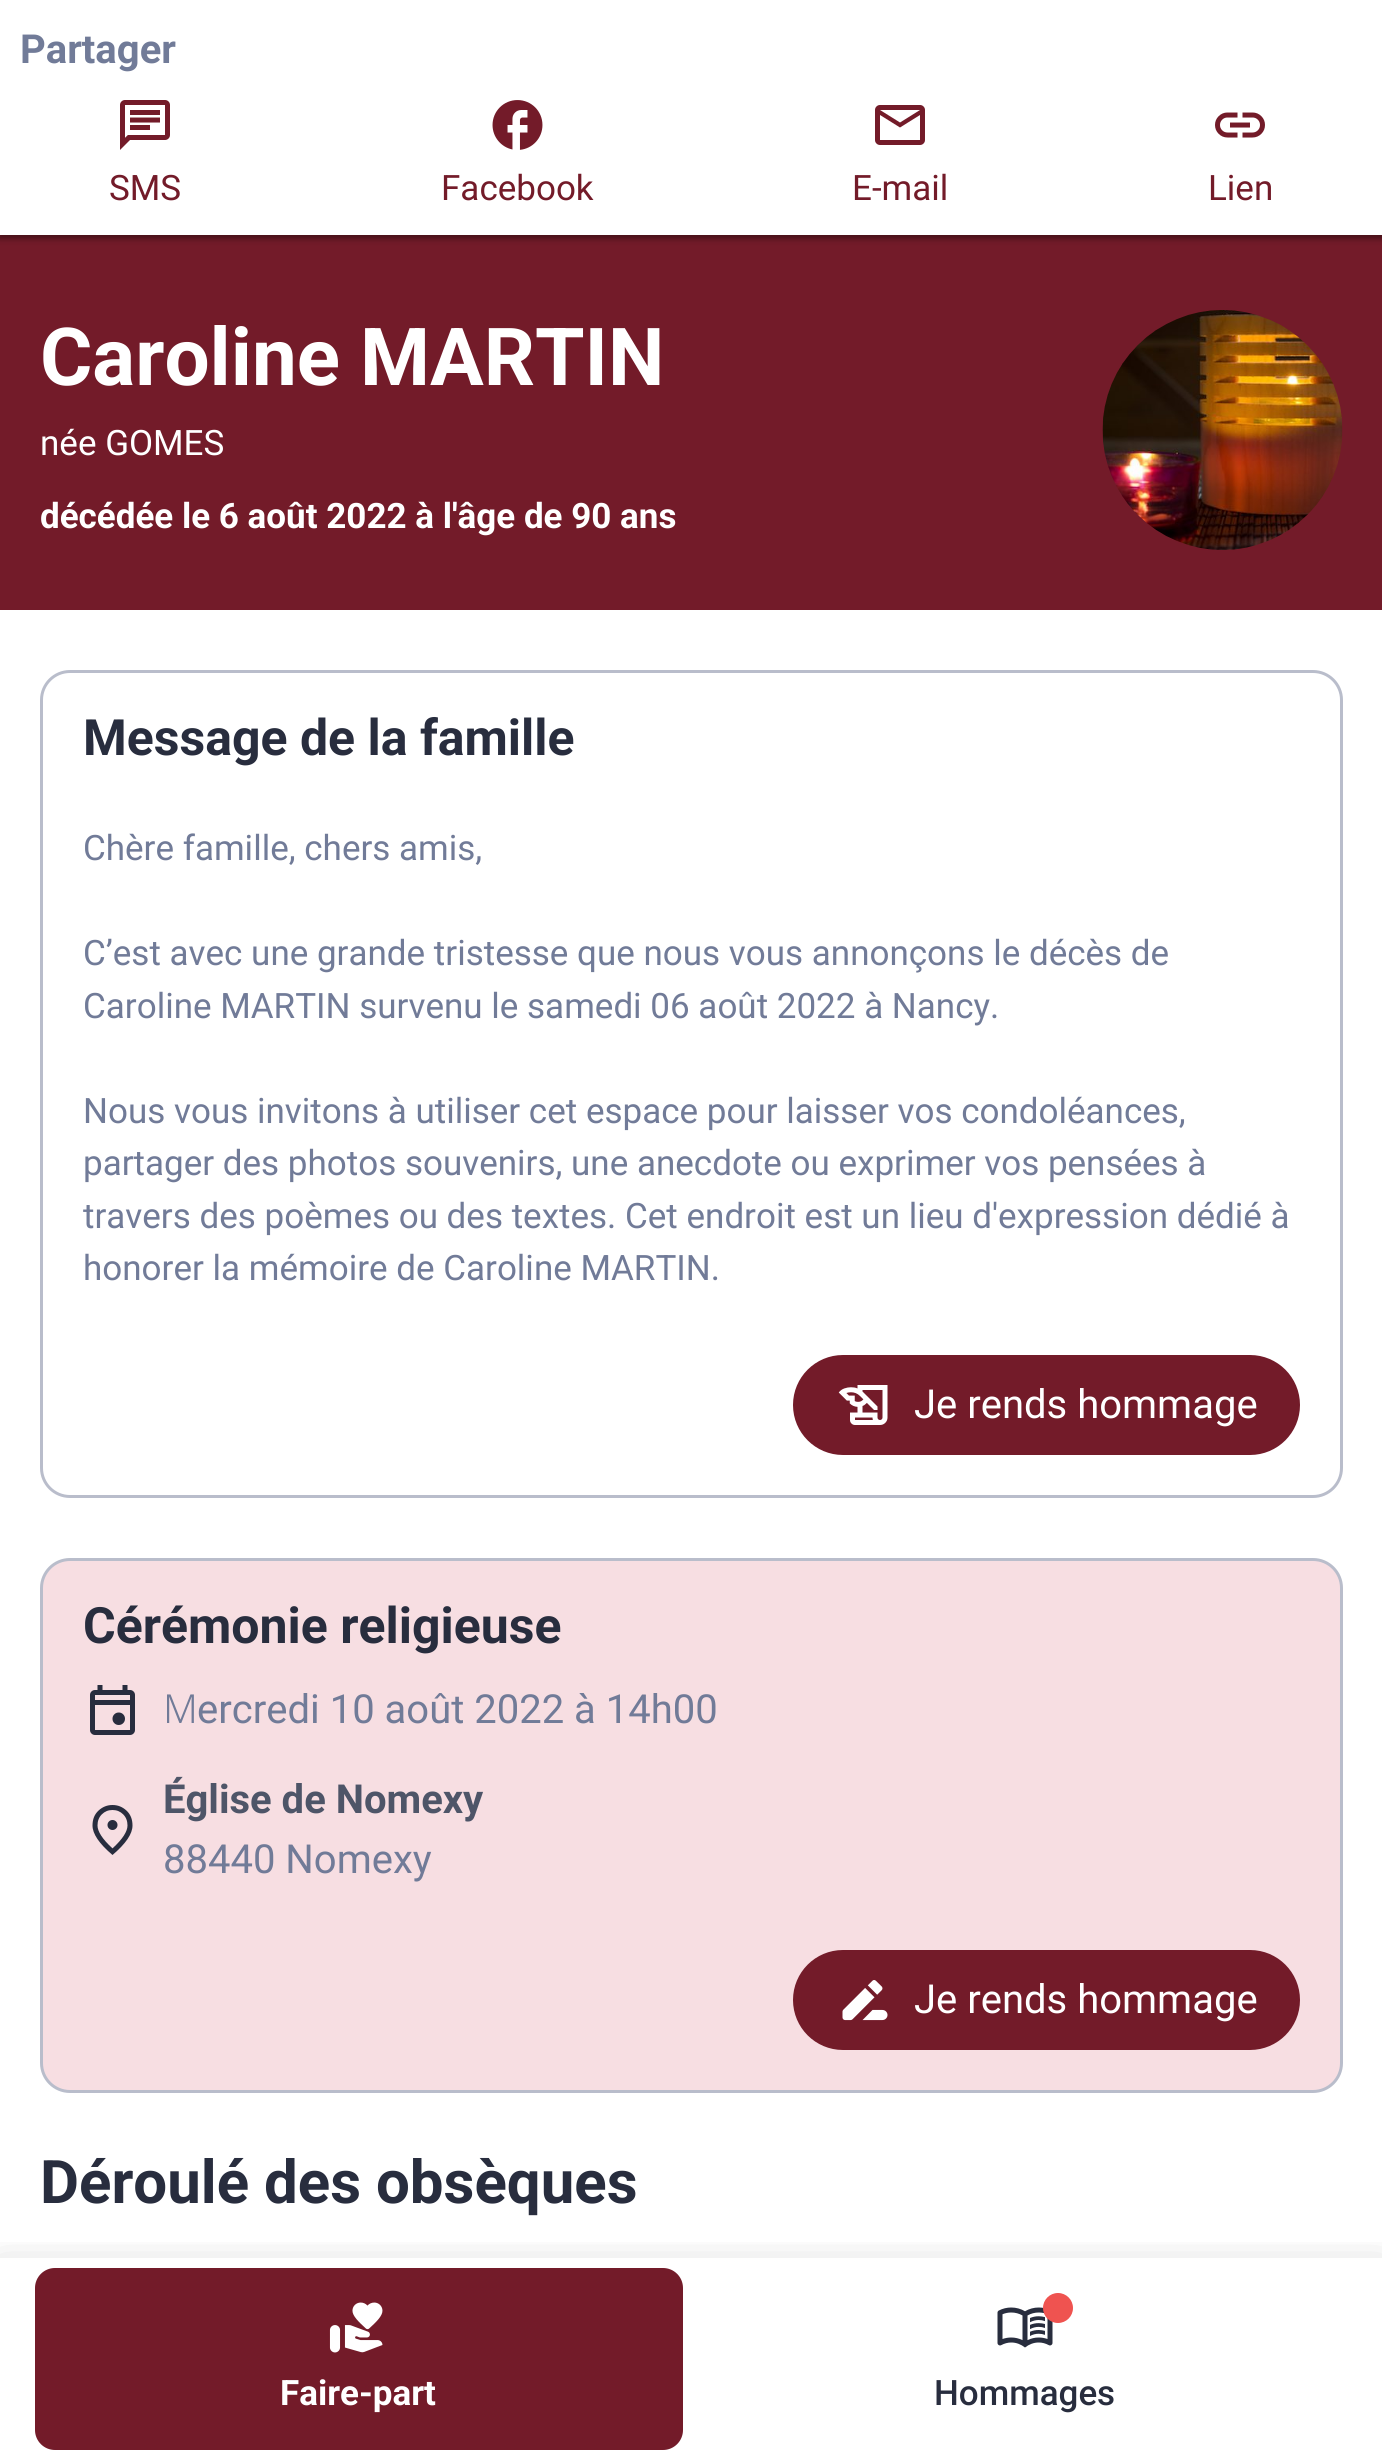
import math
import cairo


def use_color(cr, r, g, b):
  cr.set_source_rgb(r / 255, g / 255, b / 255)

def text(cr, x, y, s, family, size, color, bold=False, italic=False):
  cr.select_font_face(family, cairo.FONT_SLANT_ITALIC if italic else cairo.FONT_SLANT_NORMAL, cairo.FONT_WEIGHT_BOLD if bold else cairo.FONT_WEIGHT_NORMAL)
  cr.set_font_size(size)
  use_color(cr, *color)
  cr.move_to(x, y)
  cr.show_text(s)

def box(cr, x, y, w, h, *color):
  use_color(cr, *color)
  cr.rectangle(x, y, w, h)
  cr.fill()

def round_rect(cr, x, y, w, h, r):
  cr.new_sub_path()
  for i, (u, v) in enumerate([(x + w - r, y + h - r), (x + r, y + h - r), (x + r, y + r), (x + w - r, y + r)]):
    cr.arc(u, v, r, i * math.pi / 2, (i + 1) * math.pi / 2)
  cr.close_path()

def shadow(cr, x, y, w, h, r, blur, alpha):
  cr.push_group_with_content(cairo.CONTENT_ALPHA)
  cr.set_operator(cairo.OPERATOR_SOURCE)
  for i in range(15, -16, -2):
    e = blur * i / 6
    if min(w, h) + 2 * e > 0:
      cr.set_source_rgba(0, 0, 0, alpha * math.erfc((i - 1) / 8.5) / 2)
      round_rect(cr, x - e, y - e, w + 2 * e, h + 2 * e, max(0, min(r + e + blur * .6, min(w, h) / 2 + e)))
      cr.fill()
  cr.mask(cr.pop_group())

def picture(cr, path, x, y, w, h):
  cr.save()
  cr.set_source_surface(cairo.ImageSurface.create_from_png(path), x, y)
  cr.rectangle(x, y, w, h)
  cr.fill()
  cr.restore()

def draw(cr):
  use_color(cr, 255, 255, 255)
  cr.paint()
  box(cr, 0, 235, 1382, 375, 115, 27, 41)
  use_color(cr, 0, 0, 0)
  shadow(cr, -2, 0, 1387, 240, 0, 4, 0.15)
  shadow(cr, 0, 3, 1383, 235, 0, 2.5, 0.3)
  box(cr, 0, 0, 1382, 235, 255, 255, 255)
  picture(cr, "img_01.png", 120, 100, 50, 50)
  picture(cr, "img_02.png", 492, 100, 51, 50)
  picture(cr, "img_03.png", 875, 105, 50, 40)
  picture(cr, "img_04.png", 1215, 112, 50, 26)
  picture(cr, "img_05.png", 1102, 310, 241, 240)
  round_rect(cr, 41.5, 671.5, 1300, 825, 28.5)
  use_color(cr, 185, 189, 203)
  cr.set_line_width(3)
  cr.stroke()
  use_color(cr, 115, 27, 41)
  round_rect(cr, 794.5, 1356.5, 504, 97, 48.5)
  cr.fill_preserve()
  cr.stroke()
  picture(cr, "img_06.png", 838, 1385, 50, 40)
  use_color(cr, 247, 222, 226)
  round_rect(cr, 41.5, 1559.5, 1300, 532, 28.5)
  cr.fill_preserve()
  use_color(cr, 185, 189, 203)
  cr.stroke()
  picture(cr, "img_07.png", 90, 1685, 45, 50)
  picture(cr, "img_08.png", 92, 1805, 41, 50)
  use_color(cr, 115, 27, 41)
  round_rect(cr, 794.5, 1951.5, 504, 97, 48.5)
  cr.fill_preserve()
  cr.stroke()
  picture(cr, "img_09.png", 842, 1980, 46, 41)
  cr.save()
  cr.rectangle(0, 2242, 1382, 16)
  cr.clip()
  use_color(cr, 0, 0, 0)
  shadow(cr, 0, 2268, 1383, 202, 0, 20, 0.2)
  cr.restore()
  round_rect(cr, 35, 2268, 648, 182, 20)
  cr.fill()
  picture(cr, "img_10.png", 329, 2302, 54, 51)
  picture(cr, "img_11.png", 997, 2307, 56, 41)
  use_color(cr, 239, 83, 80)
  cr.arc(1058, 2308, 15, 0, 2 * math.pi)
  cr.fill()
  text(cr, 20, 63, "Partager", "Roboto", 40, (113, 123, 152), bold=True)
  text(cr, 109, 200, "SMS", "Roboto", 35, (115, 27, 41))
  text(cr, 441, 200, "Facebook", "Roboto", 35, (115, 27, 41))
  text(cr, 852, 200, "E-mail", "Roboto", 35, (115, 27, 41))
  text(cr, 1208, 200, "Lien", "Roboto", 35, (115, 27, 41))
  text(cr, 40, 385, "Caroline MARTIN", "Roboto", 80, (255, 255, 255), bold=True)
  text(cr, 40, 455, "née GOMES", "Roboto", 35, (255, 255, 255))
  text(cr, 40, 528, "décédée le 6 août 2022 à l'âge de 90 ans", "Roboto", 35, (255, 255, 255), bold=True)
  text(cr, 83, 755, "Message de la famille", "Roboto", 50, (40, 45, 62), bold=True)
  text(cr, 83, 860, "Chère famille, chers amis,", "Roboto", 35, (113, 123, 152))
  text(cr, 83, 965, "C’est avec une grande tristesse que nous vous annonçons le décès de", "Roboto", 35, (113, 123, 152))
  text(cr, 83, 1018, "Caroline MARTIN survenu le samedi 06 août 2022 à Nancy.", "Roboto", 35, (113, 123, 152))
  text(cr, 83, 1123, "Nous vous invitons à utiliser cet espace pour laisser vos condoléances,", "Roboto", 35, (113, 123, 152))
  text(cr, 83, 1175, "partager des photos souvenirs, une anecdote ou exprimer vos pensées à", "Roboto", 35, (113, 123, 152))
  text(cr, 83, 1228, "travers des poèmes ou des textes. Cet endroit est un lieu d'expression dédié à", "Roboto", 35, (113, 123, 152))
  text(cr, 83, 1280, "honorer la mémoire de Caroline MARTIN.", "Roboto", 35, (113, 123, 152))
  text(cr, 914, 1418, "Je rends hommage", "Roboto", 40, (255, 255, 255))
  text(cr, 83, 1643, "Cérémonie religieuse", "Roboto", 50, (40, 45, 62), bold=True)
  text(cr, 163, 1723, "M", "Noto Sans Light", 40, (113, 123, 152))
  text(cr, 197, 1723, "ercredi 10 août 2022 à 14h00", "Roboto", 40, (113, 123, 152))
  text(cr, 163, 1813, "Église de Nomexy", "Roboto", 40, (78, 85, 104), bold=True)
  text(cr, 163, 1873, "88440 Nomexy", "Roboto", 40, (113, 123, 152))
  text(cr, 914, 2013, "Je rends hommage", "Roboto", 40, (255, 255, 255))
  text(cr, 40, 2203, "Déroulé des obsèques", "Roboto", 60, (40, 45, 62), bold=True)
  text(cr, 280, 2405, "Faire-part", "Roboto", 35, (255, 255, 255), bold=True)
  text(cr, 934, 2405, "Hommages", "Roboto Medium", 35, (40, 45, 62))


surface = cairo.ImageSurface(cairo.FORMAT_RGB24, 1382, 2460)
cr = cairo.Context(surface)
options = cairo.FontOptions()
options.set_hint_metrics(cairo.HINT_METRICS_OFF)
options.set_hint_style(cairo.HINT_STYLE_NONE)
cr.set_font_options(options)
cr.set_miter_limit(4)
draw(cr)
surface.write_to_png("out.png")
